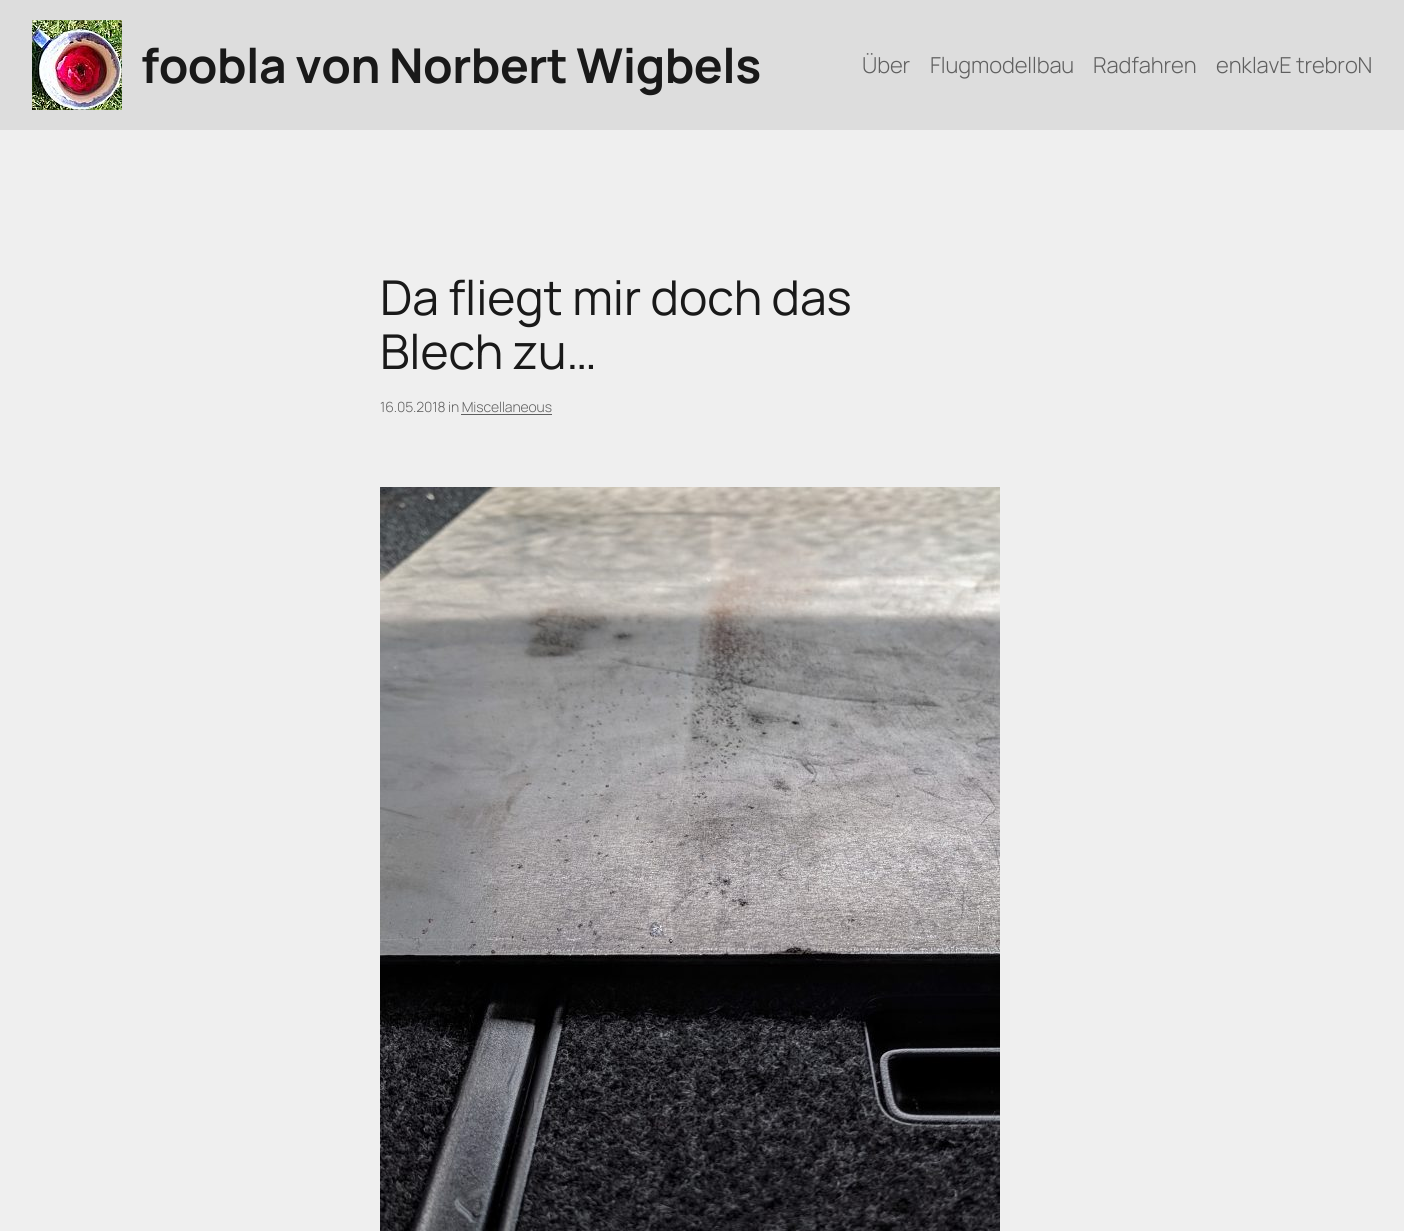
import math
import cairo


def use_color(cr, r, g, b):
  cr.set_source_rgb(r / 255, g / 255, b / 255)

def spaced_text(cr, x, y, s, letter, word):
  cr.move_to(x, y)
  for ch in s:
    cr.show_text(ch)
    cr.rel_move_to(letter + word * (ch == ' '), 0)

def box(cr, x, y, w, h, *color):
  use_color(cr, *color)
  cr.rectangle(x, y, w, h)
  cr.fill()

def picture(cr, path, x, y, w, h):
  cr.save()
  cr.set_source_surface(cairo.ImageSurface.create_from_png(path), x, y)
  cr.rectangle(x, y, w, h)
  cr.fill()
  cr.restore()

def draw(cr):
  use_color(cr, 239, 239, 239)
  cr.paint()
  box(cr, 0, 0, 1404, 130, 221, 221, 221)
  picture(cr, "img_01.png", 32, 20, 90, 90)
  box(cr, 461, 414, 91, 1, 95, 95, 95)
  picture(cr, "img_02.png", 380, 487, 620, 744)
  cr.select_font_face("Manrope", cairo.FONT_SLANT_NORMAL, cairo.FONT_WEIGHT_BOLD)
  cr.set_font_size(48)
  use_color(cr, 25, 25, 25)
  spaced_text(cr, 141, 83, "foobla von Norbert Wigbels", -0.5, 0)
  cr.select_font_face("Manrope Light")
  cr.set_font_size(22)
  use_color(cr, 95, 95, 95)
  spaced_text(cr, 862, 73, "Über", -0.1, 0)
  spaced_text(cr, 930, 73, "Flugmodellbau", -0.1, 0)
  spaced_text(cr, 1093, 73, "Radfahren", -0.1, 0)
  spaced_text(cr, 1216, 73, "enklavE trebroN", -0.1, 0)
  cr.select_font_face("Manrope")
  cr.set_font_size(48)
  use_color(cr, 25, 25, 25)
  spaced_text(cr, 380, 315, "Da fliegt mir doch das", -0.1, 0)
  spaced_text(cr, 380, 369, "Blech zu…", -0.1, 0)
  cr.select_font_face("Manrope Light")
  cr.set_font_size(14)
  use_color(cr, 95, 95, 95)
  spaced_text(cr, 380, 412, "16.05.2018 in Miscellaneous", -0.1, 0)


surface = cairo.ImageSurface(cairo.FORMAT_RGB24, 1404, 1231)
cr = cairo.Context(surface)
options = cairo.FontOptions()
options.set_hint_metrics(cairo.HINT_METRICS_OFF)
options.set_hint_style(cairo.HINT_STYLE_NONE)
cr.set_font_options(options)
cr.set_miter_limit(4)
draw(cr)
surface.write_to_png("out.png")
